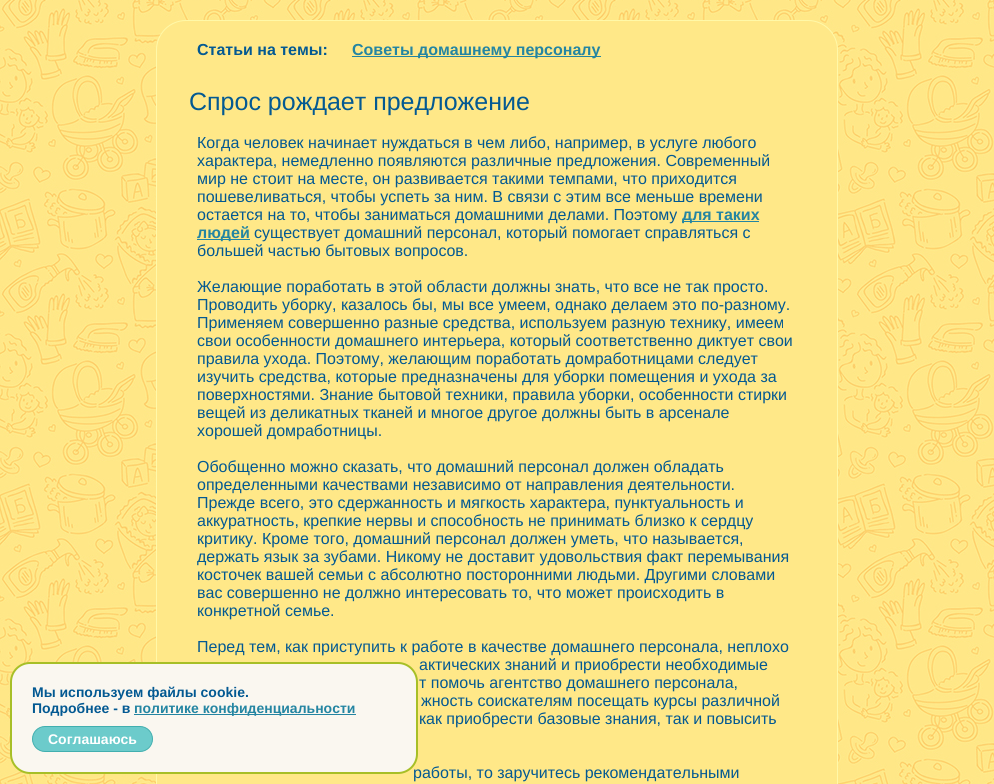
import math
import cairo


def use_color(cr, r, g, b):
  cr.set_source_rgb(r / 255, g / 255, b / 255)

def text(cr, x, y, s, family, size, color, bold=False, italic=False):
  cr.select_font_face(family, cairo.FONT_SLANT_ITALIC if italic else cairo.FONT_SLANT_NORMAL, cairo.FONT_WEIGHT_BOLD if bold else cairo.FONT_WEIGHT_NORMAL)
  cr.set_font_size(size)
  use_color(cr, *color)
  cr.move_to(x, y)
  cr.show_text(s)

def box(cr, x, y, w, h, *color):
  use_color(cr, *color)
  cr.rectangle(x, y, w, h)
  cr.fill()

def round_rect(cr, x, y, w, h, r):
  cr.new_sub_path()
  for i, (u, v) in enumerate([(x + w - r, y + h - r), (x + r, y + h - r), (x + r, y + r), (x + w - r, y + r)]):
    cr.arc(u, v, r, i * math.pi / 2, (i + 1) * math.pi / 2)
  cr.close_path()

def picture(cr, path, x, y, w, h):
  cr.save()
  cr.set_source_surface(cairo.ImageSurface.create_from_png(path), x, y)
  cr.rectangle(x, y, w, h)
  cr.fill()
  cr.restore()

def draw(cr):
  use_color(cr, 255, 255, 255)
  cr.paint()
  picture(cr, "img_01.png", 0, 0, 994, 784)
  use_color(cr, 255, 232, 136)
  round_rect(cr, 156.5, 20.5, 681, 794, 29.5)
  cr.fill_preserve()
  use_color(cr, 255, 248, 168)
  cr.set_line_width(1)
  cr.stroke()
  box(cr, 352, 56, 249, 1, 36, 133, 162)
  box(cr, 682, 221, 77, 1, 36, 133, 162)
  box(cr, 197, 239, 53, 1, 36, 133, 162)
  text(cr, 197, 55, "Статьи на темы:", "Liberation Sans", 16, (3, 89, 146), bold=True)
  text(cr, 352, 55, "Советы домашнему персоналу", "Liberation Sans", 16, (36, 133, 162), bold=True)
  text(cr, 189, 110, "Спрос рождает предложение", "Liberation Sans", 25, (3, 89, 146))
  text(cr, 197, 148, "Когда человек начинает нуждаться в чем либо, например, в услуге любого", "Liberation Sans", 16, (3, 89, 146))
  text(cr, 197, 166, "характера, немедленно появляются различные предложения. Современный", "Liberation Sans", 16, (3, 89, 146))
  text(cr, 197, 184, "мир не стоит на месте, он развивается такими темпами, что приходится", "Liberation Sans", 16, (3, 89, 146))
  text(cr, 197, 202, "пошевеливаться, чтобы успеть за ним. В связи с этим все меньше времени", "Liberation Sans", 16, (3, 89, 146))
  text(cr, 197, 220, "остается на то, чтобы заниматься домашними делами. Поэтому", "Liberation Sans", 16, (3, 89, 146))
  text(cr, 682, 220, "для таких", "Liberation Sans", 16, (36, 133, 162), bold=True)
  text(cr, 197, 238, "людей", "Liberation Sans", 16, (36, 133, 162), bold=True)
  text(cr, 254, 238, "существует домашний персонал, который помогает справляться с", "Liberation Sans", 16, (3, 89, 146))
  text(cr, 197, 256, "большей частью бытовых вопросов.", "Liberation Sans", 16, (3, 89, 146))
  text(cr, 197, 292, "Желающие поработать в этой области должны знать, что все не так просто.", "Liberation Sans", 16, (3, 89, 146))
  text(cr, 197, 310, "Проводить уборку, казалось бы, мы все умеем, однако делаем это по-разному.", "Liberation Sans", 16, (3, 89, 146))
  text(cr, 197, 328, "Применяем совершенно разные средства, используем разную технику, имеем", "Liberation Sans", 16, (3, 89, 146))
  text(cr, 197, 346, "свои особенности домашнего интерьера, который соответственно диктует свои", "Liberation Sans", 16, (3, 89, 146))
  text(cr, 197, 364, "правила ухода. Поэтому, желающим поработать домработницами следует", "Liberation Sans", 16, (3, 89, 146))
  text(cr, 197, 382, "изучить средства, которые предназначены для уборки помещения и ухода за", "Liberation Sans", 16, (3, 89, 146))
  text(cr, 197, 400, "поверхностями. Знание бытовой техники, правила уборки, особенности стирки", "Liberation Sans", 16, (3, 89, 146))
  text(cr, 197, 418, "вещей из деликатных тканей и многое другое должны быть в арсенале", "Liberation Sans", 16, (3, 89, 146))
  text(cr, 197, 436, "хорошей домработницы.", "Liberation Sans", 16, (3, 89, 146))
  text(cr, 197, 472, "Обобщенно можно сказать, что домашний персонал должен обладать", "Liberation Sans", 16, (3, 89, 146))
  text(cr, 197, 490, "определенными качествами независимо от направления деятельности.", "Liberation Sans", 16, (3, 89, 146))
  text(cr, 197, 508, "Прежде всего, это сдержанность и мягкость характера, пунктуальность и", "Liberation Sans", 16, (3, 89, 146))
  text(cr, 197, 526, "аккуратность, крепкие нервы и способность не принимать близко к сердцу", "Liberation Sans", 16, (3, 89, 146))
  text(cr, 197, 544, "критику. Кроме того, домашний персонал должен уметь, что называется,", "Liberation Sans", 16, (3, 89, 146))
  text(cr, 197, 562, "держать язык за зубами. Никому не доставит удовольствия факт перемывания", "Liberation Sans", 16, (3, 89, 146))
  text(cr, 197, 580, "косточек вашей семьи с абсолютно посторонними людьми. Другими словами", "Liberation Sans", 16, (3, 89, 146))
  text(cr, 197, 598, "вас совершенно не должно интересовать то, что может происходить в", "Liberation Sans", 16, (3, 89, 146))
  text(cr, 197, 616, "конкретной семье.", "Liberation Sans", 16, (3, 89, 146))
  text(cr, 197, 652, "Перед тем, как приступить к работе в качестве домашнего персонала, неплохо", "Liberation Sans", 16, (3, 89, 146))
  text(cr, 419, 670, "актических знаний и приобрести необходимые", "Liberation Sans", 16, (3, 89, 146))
  text(cr, 419, 688, "т помочь агентство домашнего персонала,", "Liberation Sans", 16, (3, 89, 146))
  text(cr, 421, 706, "жность соискателям посещать курсы различной", "Liberation Sans", 16, (3, 89, 146))
  text(cr, 419, 724, "как приобрести базовые знания, так и повысить", "Liberation Sans", 16, (3, 89, 146))
  text(cr, 413, 778, "работы, то заручитесь рекомендательными", "Liberation Sans", 16, (3, 89, 146))
  use_color(cr, 250, 247, 240)
  round_rect(cr, 11, 663, 406, 110, 19)
  cr.fill_preserve()
  use_color(cr, 167, 191, 39)
  cr.set_line_width(2)
  cr.stroke()
  text(cr, 32, 697, "Мы используем файлы cookie.", "Liberation Sans", 14, (3, 89, 146), bold=True)
  text(cr, 32, 713, "Подробнее - в", "Liberation Sans", 14, (3, 89, 146), bold=True)
  box(cr, 134, 714, 222, 1, 36, 133, 162)
  text(cr, 134, 713, "политике конфиденциальности", "Liberation Sans", 14, (36, 133, 162), bold=True)
  use_color(cr, 108, 203, 203)
  round_rect(cr, 32.5, 726.5, 120, 25, 12.5)
  cr.fill_preserve()
  use_color(cr, 65, 175, 175)
  cr.set_line_width(1)
  cr.stroke()
  text(cr, 48, 744, "Соглашаюсь", "Liberation Sans", 14, (255, 255, 255), bold=True)


surface = cairo.ImageSurface(cairo.FORMAT_RGB24, 994, 784)
cr = cairo.Context(surface)
options = cairo.FontOptions()
options.set_hint_metrics(cairo.HINT_METRICS_OFF)
options.set_hint_style(cairo.HINT_STYLE_NONE)
cr.set_font_options(options)
cr.set_miter_limit(4)
draw(cr)
surface.write_to_png("out.png")
